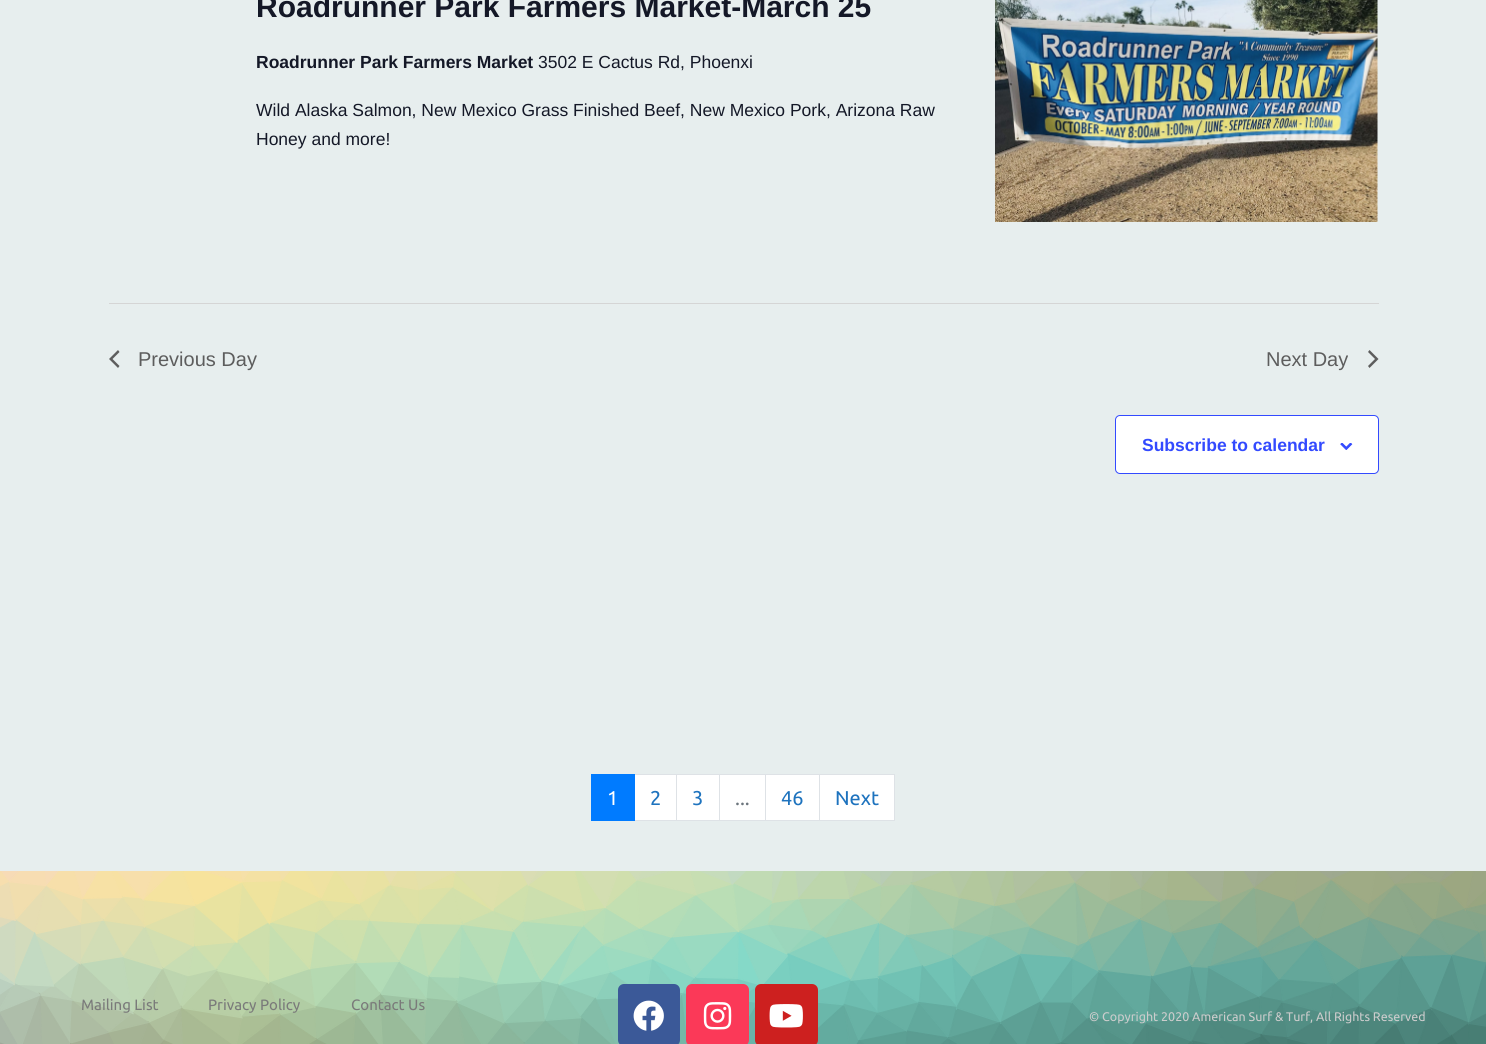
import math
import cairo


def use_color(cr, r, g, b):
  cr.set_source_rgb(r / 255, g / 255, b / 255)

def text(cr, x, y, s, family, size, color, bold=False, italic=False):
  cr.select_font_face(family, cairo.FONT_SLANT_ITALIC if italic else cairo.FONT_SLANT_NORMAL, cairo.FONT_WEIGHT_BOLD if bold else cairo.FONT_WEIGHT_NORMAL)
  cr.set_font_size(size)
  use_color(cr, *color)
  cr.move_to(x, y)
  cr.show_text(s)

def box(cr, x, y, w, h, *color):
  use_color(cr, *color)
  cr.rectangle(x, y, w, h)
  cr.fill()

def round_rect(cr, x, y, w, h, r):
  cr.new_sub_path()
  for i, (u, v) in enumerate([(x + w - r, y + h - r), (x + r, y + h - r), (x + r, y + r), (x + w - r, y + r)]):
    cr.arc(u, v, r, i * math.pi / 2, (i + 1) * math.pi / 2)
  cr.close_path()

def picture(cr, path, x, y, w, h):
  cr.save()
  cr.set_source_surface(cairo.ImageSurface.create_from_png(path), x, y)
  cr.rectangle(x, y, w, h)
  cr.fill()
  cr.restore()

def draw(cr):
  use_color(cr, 231, 238, 238)
  cr.paint()
  picture(cr, "img_01.png", 995, 0, 383, 222)
  box(cr, 109, 303, 1270, 1, 213, 213, 213)
  use_color(cr, 93, 93, 93)
  cr.new_path()
  cr.move_to(119.5, 366)
  cr.line_to(118, 368)
  cr.line_to(109, 359)
  cr.line_to(118, 350)
  cr.line_to(119.5, 352)
  cr.line_to(112.5, 359)
  cr.close_path()
  cr.fill()
  cr.new_path()
  cr.move_to(1368, 352)
  cr.line_to(1369.5, 350)
  cr.line_to(1378.5, 359)
  cr.line_to(1369.5, 368)
  cr.line_to(1368, 366)
  cr.line_to(1375, 359)
  cr.close_path()
  cr.fill()
  use_color(cr, 255, 255, 255)
  round_rect(cr, 1115.5, 415.5, 263, 58, 4.5)
  cr.fill_preserve()
  use_color(cr, 51, 74, 255)
  cr.set_line_width(1)
  cr.stroke()
  picture(cr, "img_02.png", 1340, 443, 13, 7)
  box(cr, 635, 775, 41, 45, 255, 255, 255)
  cr.rectangle(634.5, 774.5, 43, 46)
  use_color(cr, 222, 226, 230)
  cr.stroke()
  box(cr, 591, 774, 44, 47, 0, 123, 255)
  use_color(cr, 255, 255, 255)
  cr.rectangle(676.5, 774.5, 43, 46)
  cr.fill_preserve()
  use_color(cr, 222, 226, 230)
  cr.stroke()
  use_color(cr, 255, 255, 255)
  cr.rectangle(719.5, 774.5, 46, 46)
  cr.fill_preserve()
  use_color(cr, 222, 226, 230)
  cr.stroke()
  use_color(cr, 255, 255, 255)
  cr.rectangle(765.5, 774.5, 54, 46)
  cr.fill_preserve()
  use_color(cr, 222, 226, 230)
  cr.stroke()
  use_color(cr, 255, 255, 255)
  cr.rectangle(819.5, 774.5, 75, 46)
  cr.fill_preserve()
  use_color(cr, 222, 226, 230)
  cr.stroke()
  picture(cr, "img_03.png", 0, 871, 1486, 173)
  use_color(cr, 59, 89, 152)
  round_rect(cr, 618, 984, 62, 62, 6)
  cr.fill()
  picture(cr, "img_04.png", 633, 1000, 31, 31)
  use_color(cr, 251, 57, 88)
  round_rect(cr, 686, 984, 63, 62, 6)
  cr.fill()
  picture(cr, "img_05.png", 703, 1002, 29, 28)
  use_color(cr, 205, 32, 31)
  round_rect(cr, 755, 984, 63, 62, 6)
  cr.fill()
  picture(cr, "img_06.png", 769, 1004, 34, 24)
  text(cr, 256, 17, "Roadrunner Park Farmers Market-March 25", "Liberation Sans", 30, (20, 24, 39), bold=True)
  text(cr, 256, 68, "Roadrunner Park Farmers Market", "Liberation Sans", 17.5, (20, 24, 39), bold=True)
  text(cr, 538, 68, "3502 E Cactus Rd, Phoenxi", "Liberation Sans", 17.5, (20, 24, 39))
  text(cr, 256, 116, "Wild Alaska Salmon, New Mexico Grass Finished Beef, New Mexico Pork, Arizona Raw", "Liberation Sans", 17.5, (20, 24, 39))
  text(cr, 256, 145, "Honey and more!", "Liberation Sans", 17.5, (20, 24, 39))
  text(cr, 138, 366, "Previous Day", "Liberation Sans", 20, (93, 93, 93))
  text(cr, 1266, 366, "Next Day", "Liberation Sans", 20, (93, 93, 93))
  text(cr, 1142, 451, "Subscribe to calendar", "Liberation Sans", 17.5, (51, 74, 255), bold=True)
  text(cr, 607, 805, "1", "Ubuntu", 20, (255, 255, 255))
  text(cr, 650, 805, "2", "Ubuntu", 20, (30, 115, 190))
  text(cr, 692, 805, "3", "Ubuntu", 20, (30, 115, 190))
  text(cr, 735, 805, "...", "Ubuntu", 20, (108, 117, 125))
  text(cr, 781, 805, "46", "Ubuntu", 20, (30, 115, 190))
  text(cr, 835, 805, "Next", "Ubuntu", 20, (30, 115, 190))
  text(cr, 81, 1010, "Mailing List", "Ubuntu", 15, (122, 122, 122))
  text(cr, 208, 1010, "Privacy Policy", "Ubuntu", 15, (122, 122, 122))
  text(cr, 351, 1010, "Contact Us", "Ubuntu", 15, (122, 122, 122))
  text(cr, 1089, 1021, "© Copyright 2020 American Surf & Turf, All Rights Reserved", "Ubuntu", 12.5, (204, 204, 204))


surface = cairo.ImageSurface(cairo.FORMAT_RGB24, 1486, 1044)
cr = cairo.Context(surface)
options = cairo.FontOptions()
options.set_hint_metrics(cairo.HINT_METRICS_OFF)
options.set_hint_style(cairo.HINT_STYLE_NONE)
cr.set_font_options(options)
cr.set_miter_limit(4)
draw(cr)
surface.write_to_png("out.png")
